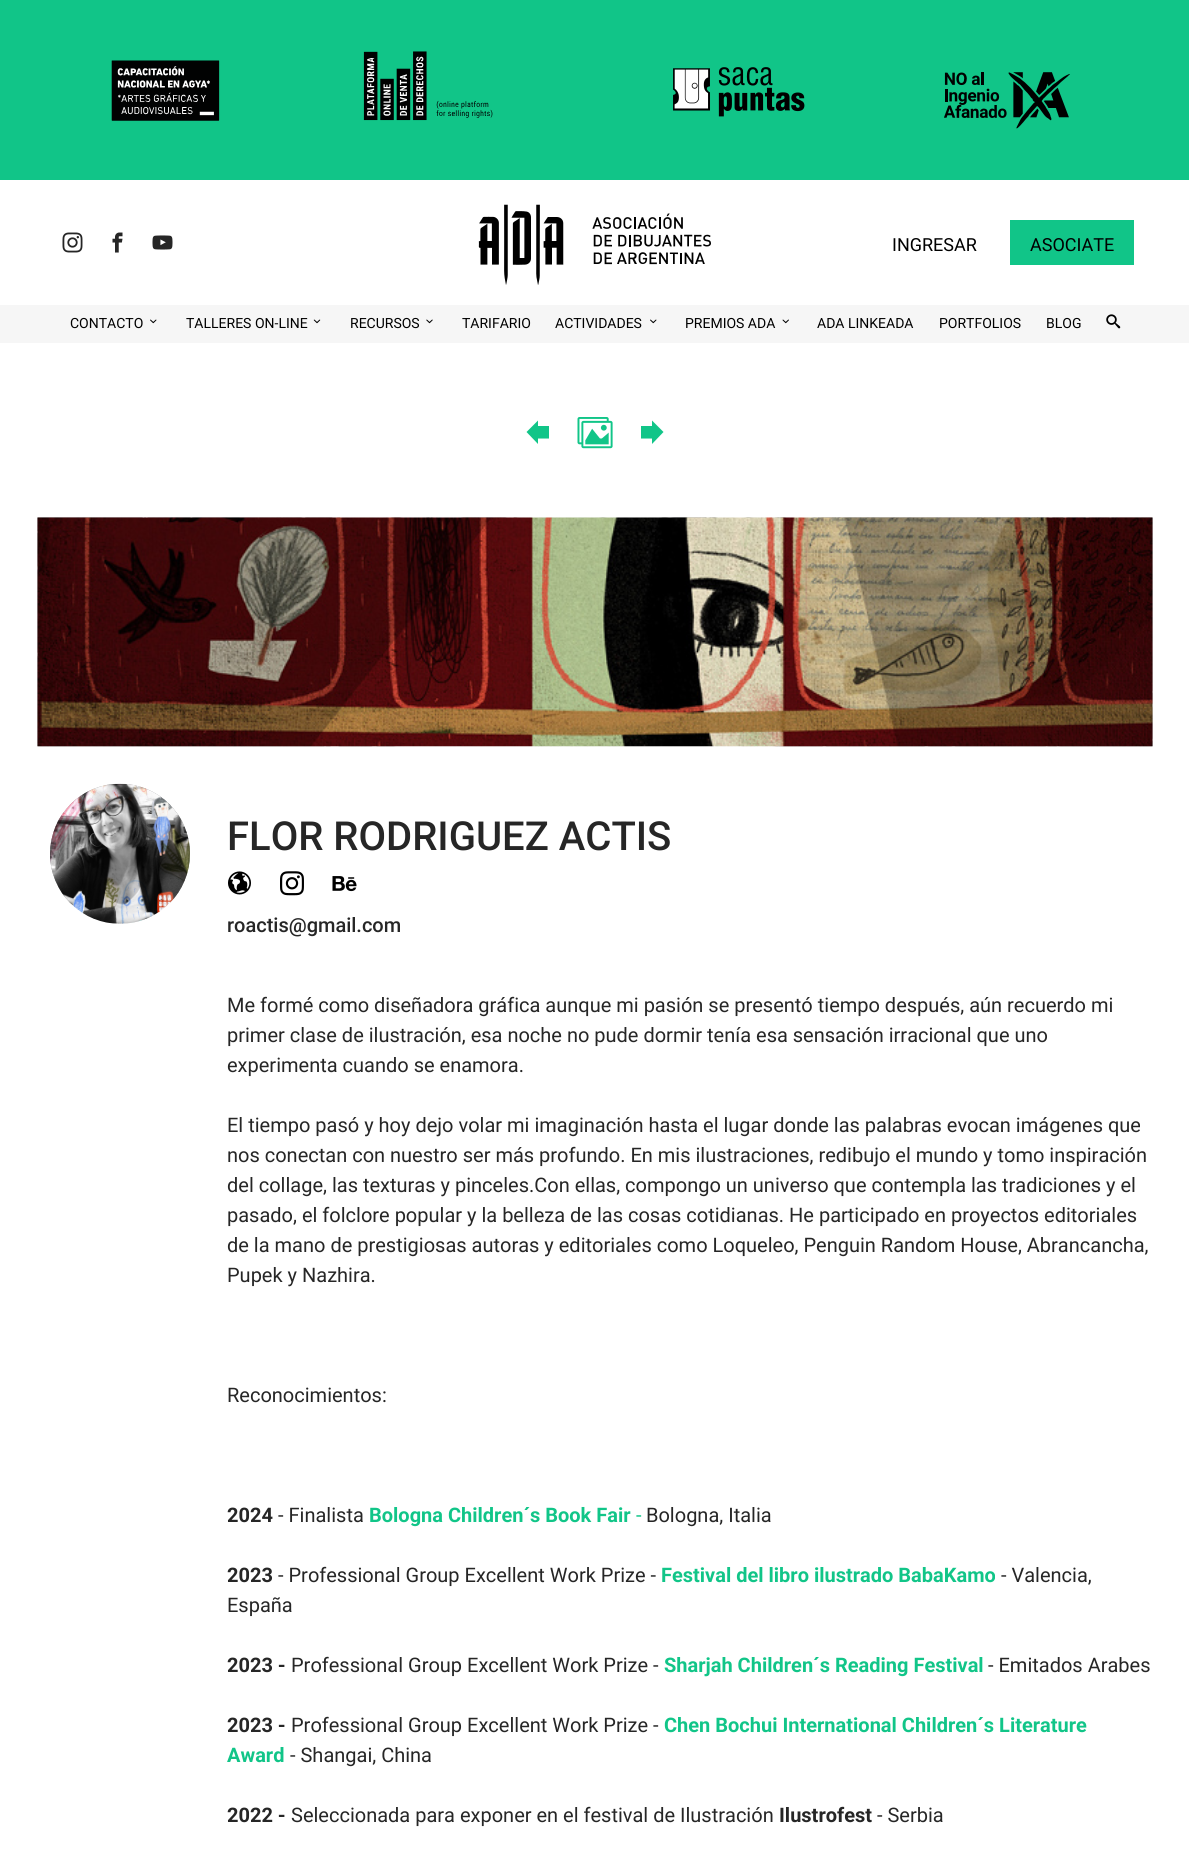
import math
import cairo


def use_color(cr, r, g, b):
  cr.set_source_rgb(r / 255, g / 255, b / 255)

def text(cr, x, y, s, family, size, color, bold=False, italic=False):
  cr.select_font_face(family, cairo.FONT_SLANT_ITALIC if italic else cairo.FONT_SLANT_NORMAL, cairo.FONT_WEIGHT_BOLD if bold else cairo.FONT_WEIGHT_NORMAL)
  cr.set_font_size(size)
  use_color(cr, *color)
  cr.move_to(x, y)
  cr.show_text(s)

def box(cr, x, y, w, h, *color):
  use_color(cr, *color)
  cr.rectangle(x, y, w, h)
  cr.fill()

def picture(cr, path, x, y, w, h):
  cr.save()
  cr.set_source_surface(cairo.ImageSurface.create_from_png(path), x, y)
  cr.rectangle(x, y, w, h)
  cr.fill()
  cr.restore()

def draw(cr):
  use_color(cr, 255, 255, 255)
  cr.paint()
  box(cr, 0, 0, 1189, 180, 17, 197, 136)
  picture(cr, "img_01.png", 111, 60, 109, 61)
  picture(cr, "img_02.png", 363, 51, 130, 70)
  picture(cr, "img_03.png", 673, 67, 132, 50)
  picture(cr, "img_04.png", 944, 72, 126, 57)
  picture(cr, "img_05.png", 62, 232, 21, 21)
  picture(cr, "img_06.png", 112, 232, 11, 21)
  picture(cr, "img_07.png", 152, 235, 21, 15)
  picture(cr, "img_08.png", 478, 204, 233, 81)
  box(cr, 1010, 220, 124, 45, 17, 197, 136)
  box(cr, 0, 305, 1189, 38, 246, 246, 246)
  picture(cr, "img_09.png", 150, 319, 7, 5)
  picture(cr, "img_10.png", 313, 319, 8, 5)
  picture(cr, "img_11.png", 426, 319, 7, 5)
  picture(cr, "img_09.png", 650, 319, 7, 5)
  picture(cr, "img_12.png", 782, 319, 7, 5)
  picture(cr, "img_13.png", 1106, 314, 15, 15)
  use_color(cr, 17, 197, 136)
  cr.new_path()
  cr.move_to(538, 420.5)
  cr.line_to(538, 426)
  cr.line_to(549, 426)
  cr.line_to(549, 438.5)
  cr.line_to(538, 438.5)
  cr.line_to(538, 444)
  cr.line_to(526.5, 432)
  cr.close_path()
  cr.fill()
  picture(cr, "img_14.png", 577, 417, 36, 32)
  cr.new_path()
  cr.move_to(663.5, 432)
  cr.line_to(652, 444)
  cr.line_to(652, 438.5)
  cr.line_to(641, 438.5)
  cr.line_to(641, 426)
  cr.line_to(652, 426)
  cr.line_to(652, 420.5)
  cr.close_path()
  cr.fill()
  picture(cr, "img_15.png", 37, 517, 1116, 230)
  picture(cr, "img_16.png", 50, 783, 140, 141)
  picture(cr, "img_17.png", 228, 871, 23, 24)
  picture(cr, "img_18.png", 280, 871, 24, 25)
  picture(cr, "img_19.png", 332, 876, 25, 16)
  text(cr, 892, 251, "INGRESAR", "Roboto", 18, (0, 0, 0))
  text(cr, 1030, 251, "ASOCIATE", "Roboto", 18, (0, 0, 0))
  text(cr, 70, 328, "CONTACTO", "Roboto", 14, (0, 0, 0))
  text(cr, 186, 328, "TALLERES ON-LINE", "Roboto", 14, (0, 0, 0))
  text(cr, 350, 328, "RECURSOS", "Roboto", 14, (0, 0, 0))
  text(cr, 462, 328, "TARIFARIO", "Roboto", 14, (0, 0, 0))
  text(cr, 555, 328, "ACTIVIDADES", "Roboto", 14, (0, 0, 0))
  text(cr, 685, 328, "PREMIOS ADA", "Roboto", 14, (0, 0, 0))
  text(cr, 817, 328, "ADA LINKEADA", "Roboto", 14, (0, 0, 0))
  text(cr, 939, 328, "PORTFOLIOS", "Roboto", 14, (0, 0, 0))
  text(cr, 1046, 328, "BLOG", "Roboto", 14, (0, 0, 0))
  text(cr, 227, 850, "FLOR RODRIGUEZ ACTIS", "Roboto Medium", 40, (38, 38, 38))
  text(cr, 227, 932, "roactis@gmail.com", "Roboto Medium", 20, (38, 38, 38))
  text(cr, 227, 1012, "Me formé como diseñadora gráfica aunque mi pasión se presentó tiempo después, aún recuerdo mi", "Roboto", 20, (38, 38, 38))
  text(cr, 227, 1042, "primer clase de ilustración, esa noche no pude dormir tenía esa sensación irracional que uno", "Roboto", 20, (38, 38, 38))
  text(cr, 227, 1072, "experimenta cuando se enamora.", "Roboto", 20, (38, 38, 38))
  text(cr, 227, 1132, "El tiempo pasó y hoy dejo volar mi imaginación hasta el lugar donde las palabras evocan imágenes que", "Roboto", 20, (38, 38, 38))
  text(cr, 227, 1162, "nos conectan con nuestro ser más profundo. En mis ilustraciones, redibujo el mundo y tomo inspiración", "Roboto", 20, (38, 38, 38))
  text(cr, 227, 1192, "del collage, las texturas y pinceles.Con ellas, compongo un universo que contempla las tradiciones y el", "Roboto", 20, (38, 38, 38))
  text(cr, 227, 1222, "pasado, el folclore popular y la belleza de las cosas cotidianas. He participado en proyectos editoriales", "Roboto", 20, (38, 38, 38))
  text(cr, 227, 1252, "de la mano de prestigiosas autoras y editoriales como Loqueleo, Penguin Random House, Abrancancha,", "Roboto", 20, (38, 38, 38))
  text(cr, 227, 1282, "Pupek y Nazhira.", "Roboto", 20, (38, 38, 38))
  text(cr, 227, 1402, "Reconocimientos:", "Roboto", 20, (38, 38, 38))
  text(cr, 227, 1522, "2024", "Roboto", 20, (38, 38, 38), bold=True)
  text(cr, 278, 1522, "- Finalista", "Roboto", 20, (38, 38, 38))
  text(cr, 369, 1522, "Bologna Children´s Book Fair", "Roboto", 20, (17, 197, 136), bold=True)
  text(cr, 636, 1522, "-", "Roboto", 20, (17, 197, 136))
  text(cr, 646, 1522, "Bologna, Italia", "Roboto", 20, (38, 38, 38))
  text(cr, 227, 1582, "2023", "Roboto", 20, (38, 38, 38), bold=True)
  text(cr, 278, 1582, "- Professional Group Excellent Work Prize -", "Roboto", 20, (38, 38, 38))
  text(cr, 661, 1582, "Festival del libro ilustrado BabaKamo", "Roboto", 20, (17, 197, 136), bold=True)
  text(cr, 1001, 1582, "- Valencia,", "Roboto", 20, (38, 38, 38))
  text(cr, 227, 1612, "España", "Roboto", 20, (38, 38, 38))
  text(cr, 227, 1672, "2023 -", "Roboto", 20, (38, 38, 38), bold=True)
  text(cr, 291, 1672, "Professional Group Excellent Work Prize -", "Roboto", 20, (38, 38, 38))
  text(cr, 664, 1672, "Sharjah Children´s Reading Festival", "Roboto", 20, (17, 197, 136), bold=True)
  text(cr, 988, 1672, "- Emitados Arabes", "Roboto", 20, (38, 38, 38))
  text(cr, 227, 1732, "2023 -", "Roboto", 20, (38, 38, 38), bold=True)
  text(cr, 291, 1732, "Professional Group Excellent Work Prize -", "Roboto", 20, (38, 38, 38))
  text(cr, 664, 1732, "Chen Bochui International Children´s Literature", "Roboto", 20, (17, 197, 136), bold=True)
  text(cr, 227, 1762, "Award", "Roboto", 20, (17, 197, 136), bold=True)
  text(cr, 290, 1762, "- Shangai, China", "Roboto", 20, (38, 38, 38))
  text(cr, 227, 1822, "2022 -", "Roboto", 20, (38, 38, 38), bold=True)
  text(cr, 291, 1822, "Seleccionada para exponer en el festival de Ilustración", "Roboto", 20, (38, 38, 38))
  text(cr, 779, 1822, "Ilustrofest", "Roboto", 20, (38, 38, 38), bold=True)
  text(cr, 877, 1822, "- Serbia", "Roboto", 20, (38, 38, 38))


surface = cairo.ImageSurface(cairo.FORMAT_RGB24, 1189, 1855)
cr = cairo.Context(surface)
options = cairo.FontOptions()
options.set_hint_metrics(cairo.HINT_METRICS_OFF)
options.set_hint_style(cairo.HINT_STYLE_NONE)
cr.set_font_options(options)
cr.set_miter_limit(4)
draw(cr)
surface.write_to_png("out.png")
